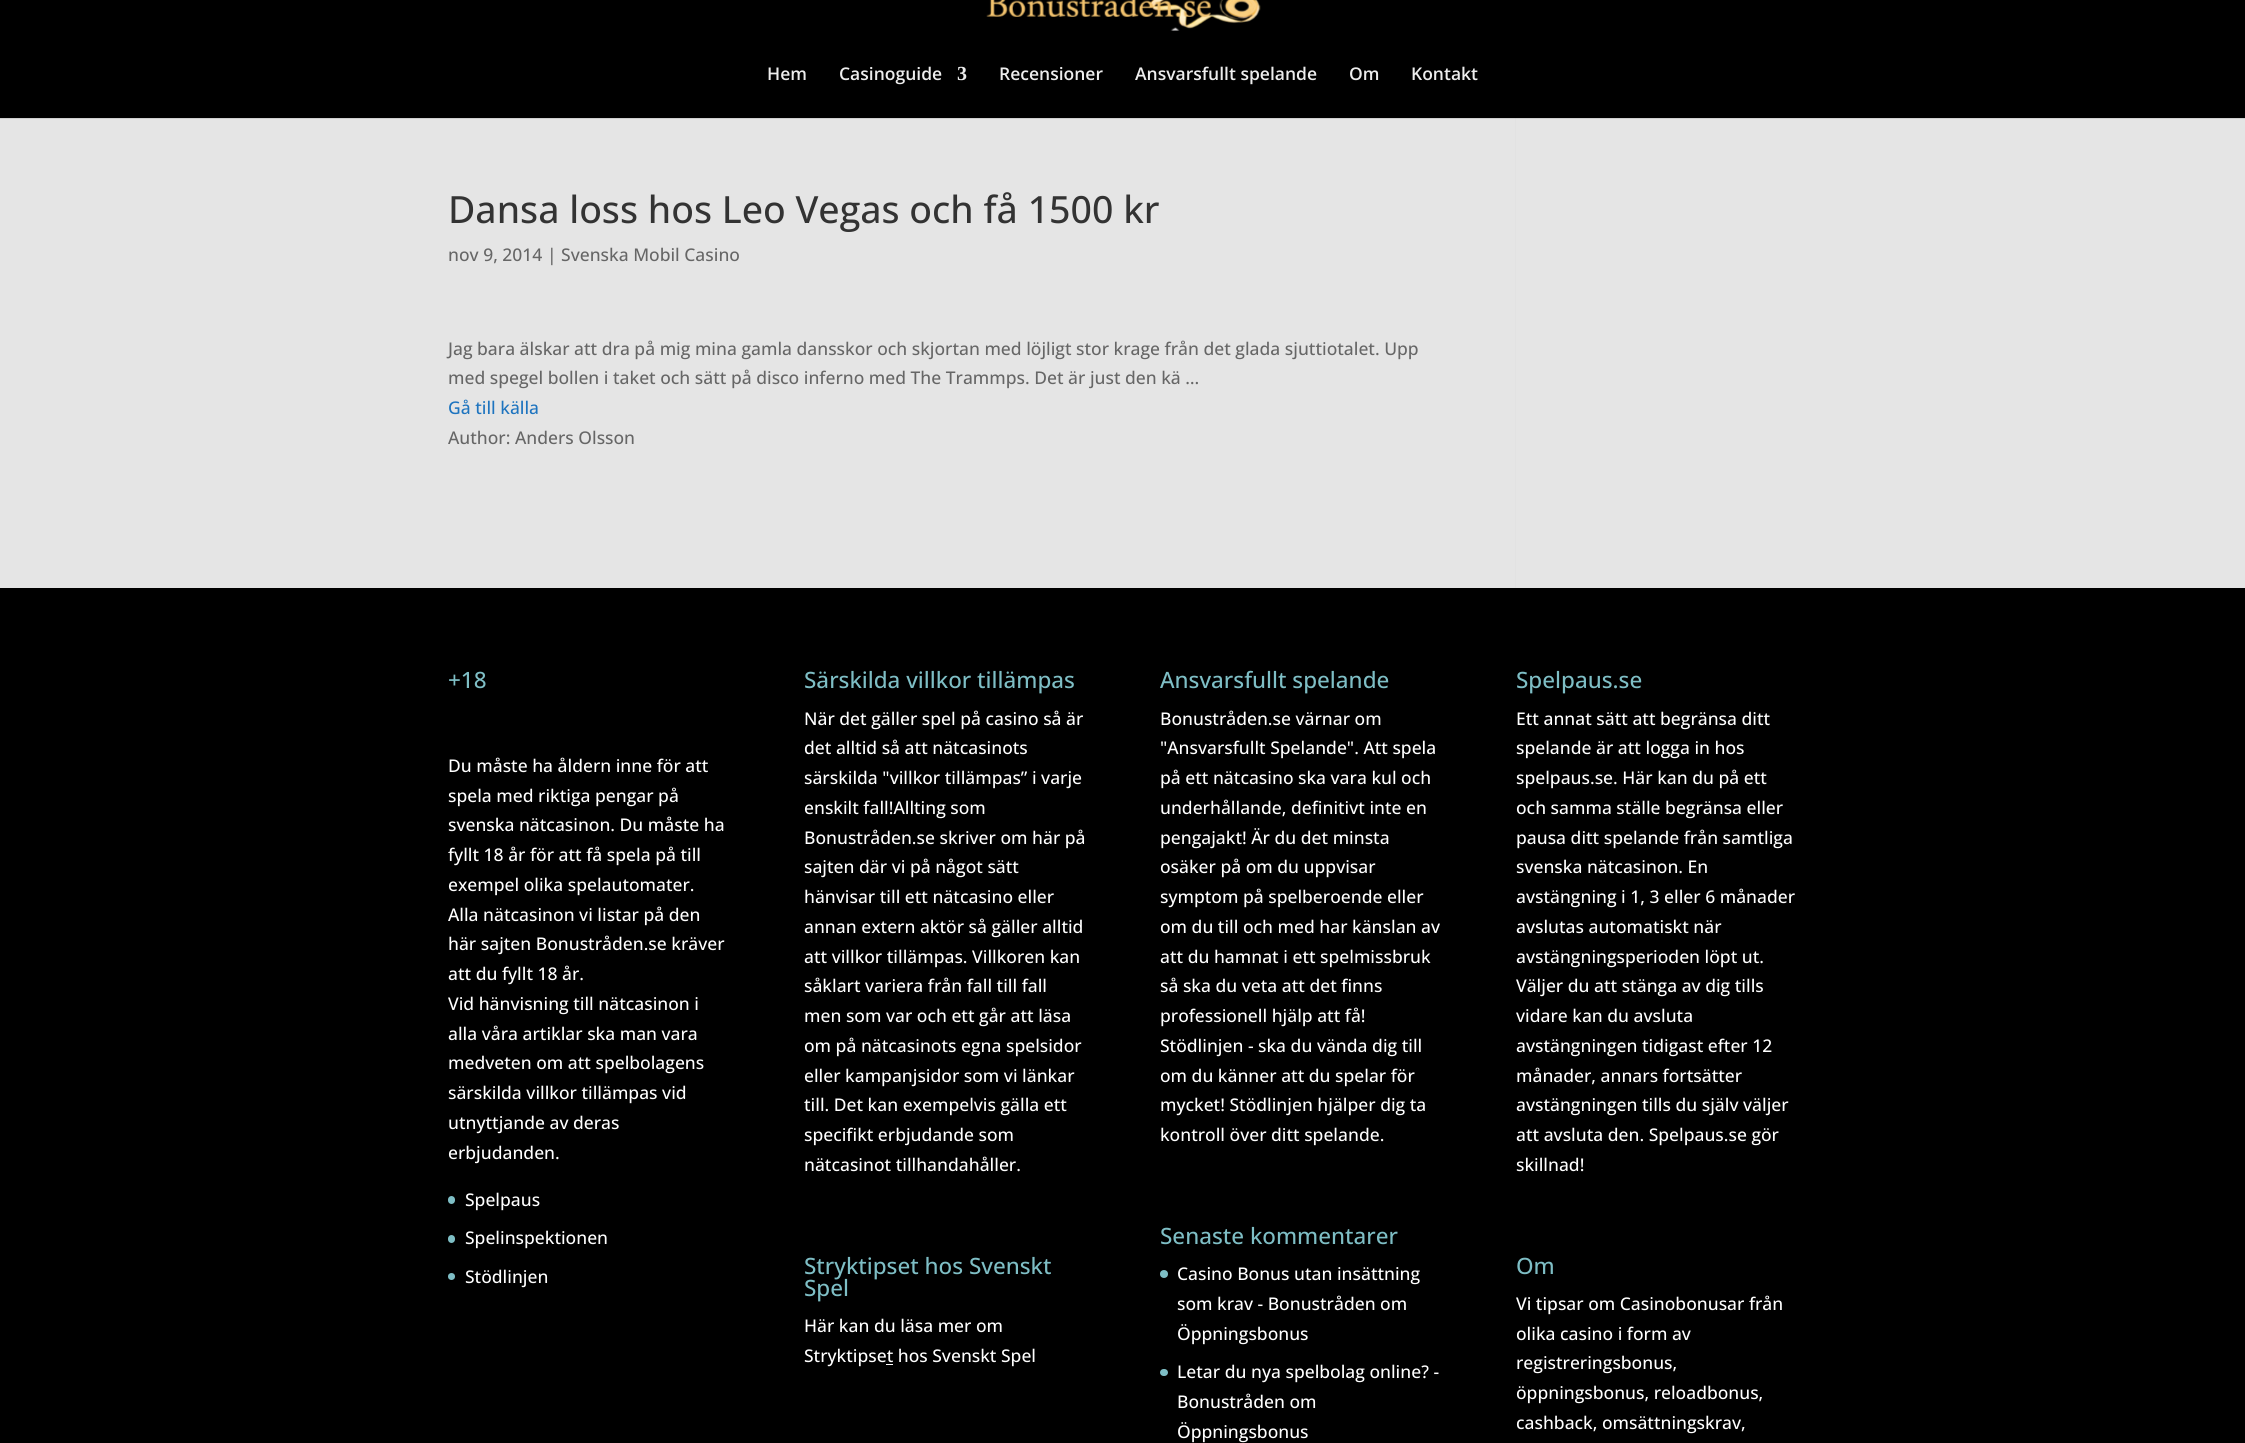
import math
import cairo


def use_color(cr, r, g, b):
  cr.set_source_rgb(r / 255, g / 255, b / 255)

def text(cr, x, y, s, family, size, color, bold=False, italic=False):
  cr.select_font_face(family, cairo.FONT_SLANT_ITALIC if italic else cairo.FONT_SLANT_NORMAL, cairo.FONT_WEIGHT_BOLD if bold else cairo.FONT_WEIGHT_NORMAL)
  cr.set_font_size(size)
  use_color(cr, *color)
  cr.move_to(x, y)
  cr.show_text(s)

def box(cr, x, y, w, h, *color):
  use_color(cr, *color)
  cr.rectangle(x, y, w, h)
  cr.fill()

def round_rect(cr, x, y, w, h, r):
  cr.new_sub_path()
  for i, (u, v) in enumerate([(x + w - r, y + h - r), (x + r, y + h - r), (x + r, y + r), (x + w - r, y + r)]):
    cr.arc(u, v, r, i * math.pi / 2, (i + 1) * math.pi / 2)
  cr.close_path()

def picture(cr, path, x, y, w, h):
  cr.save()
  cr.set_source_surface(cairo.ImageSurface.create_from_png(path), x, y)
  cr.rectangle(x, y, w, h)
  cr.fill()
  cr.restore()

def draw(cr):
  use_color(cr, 229, 229, 229)
  cr.paint()
  box(cr, 0, 118, 2245, 1, 206, 206, 206)
  box(cr, 0, 0, 2245, 118, 0, 0, 0)
  picture(cr, "img_01.png", 986, 0, 275, 31)
  box(cr, 1515, 118, 1, 470, 226, 226, 226)
  box(cr, 1515, 118, 1, 1, 203, 203, 203)
  box(cr, 0, 588, 2245, 855, 0, 0, 0)
  use_color(cr, 126, 190, 197)
  round_rect(cr, 448, 1196, 7, 8, 3.5)
  cr.fill()
  round_rect(cr, 448, 1235, 7, 8, 3.5)
  cr.fill()
  cr.arc(451.5, 1276.5, 3.5, 0, 2 * math.pi)
  cr.fill()
  box(cr, 886, 1364, 7, 1, 255, 255, 255)
  use_color(cr, 126, 190, 197)
  cr.arc(1164, 1274, 4, 0, 2 * math.pi)
  cr.fill()
  round_rect(cr, 1160, 1369, 8, 7, 3.5)
  cr.fill()
  text(cr, 767, 80, "Hem", "Open Sans SemiBold", 17.5, (237, 237, 237))
  text(cr, 839, 80, "Casinoguide", "Open Sans SemiBold", 17.5, (237, 237, 237))
  text(cr, 957, 80, "3", "Liberation Serif", 20, (237, 237, 237), bold=True)
  text(cr, 999, 80, "Recensioner", "Open Sans SemiBold", 17.5, (237, 237, 237))
  text(cr, 1135, 80, "Ansvarsfullt spelande", "Open Sans SemiBold", 17.5, (237, 237, 237))
  text(cr, 1349, 80, "Om", "Open Sans SemiBold", 17.5, (237, 237, 237))
  text(cr, 1411, 80, "Kontakt", "Open Sans SemiBold", 17.5, (237, 237, 237))
  text(cr, 448, 223, "Dansa loss hos Leo Vegas och få 1500 kr", "Open Sans Medium", 37.5, (51, 51, 51))
  text(cr, 448, 261, "nov 9, 2014 | Svenska Mobil Casino", "Open Sans Medium", 17.5, (102, 102, 102))
  text(cr, 448, 355, "Jag bara älskar att dra på mig mina gamla dansskor och skjortan med löjligt stor krage från det glada sjuttiotalet. Upp", "Open Sans Medium", 17.5, (102, 102, 102))
  text(cr, 448, 384, "med spegel bollen i taket och sätt på disco inferno med The Trammps. Det är just den kä …", "Open Sans Medium", 17.5, (102, 102, 102))
  text(cr, 448, 414, "Gå till källa", "Open Sans Medium", 17.5, (30, 116, 191))
  text(cr, 448, 444, "Author: Anders Olsson", "Open Sans Medium", 17.5, (102, 102, 102))
  text(cr, 448, 688, "+18", "Open Sans Medium", 22.5, (126, 190, 197))
  text(cr, 448, 772, "Du måste ha åldern inne för att", "Open Sans Medium", 17.5, (255, 255, 255))
  text(cr, 448, 802, "spela med riktiga pengar på", "Open Sans Medium", 17.5, (255, 255, 255))
  text(cr, 448, 831, "svenska nätcasinon. Du måste ha", "Open Sans Medium", 17.5, (255, 255, 255))
  text(cr, 448, 861, "fyllt 18 år för att få spela på till", "Open Sans Medium", 17.5, (255, 255, 255))
  text(cr, 448, 891, "exempel olika spelautomater.", "Open Sans Medium", 17.5, (255, 255, 255))
  text(cr, 448, 921, "Alla nätcasinon vi listar på den", "Open Sans Medium", 17.5, (255, 255, 255))
  text(cr, 448, 950, "här sajten Bonustråden.se kräver", "Open Sans Medium", 17.5, (255, 255, 255))
  text(cr, 448, 980, "att du fyllt 18 år.", "Open Sans Medium", 17.5, (255, 255, 255))
  text(cr, 448, 1010, "Vid hänvisning till nätcasinon i", "Open Sans Medium", 17.5, (255, 255, 255))
  text(cr, 448, 1040, "alla våra artiklar ska man vara", "Open Sans Medium", 17.5, (255, 255, 255))
  text(cr, 448, 1069, "medveten om att spelbolagens", "Open Sans Medium", 17.5, (255, 255, 255))
  text(cr, 448, 1099, "särskilda villkor tillämpas vid", "Open Sans Medium", 17.5, (255, 255, 255))
  text(cr, 448, 1129, "utnyttjande av deras", "Open Sans Medium", 17.5, (255, 255, 255))
  text(cr, 448, 1159, "erbjudanden.", "Open Sans Medium", 17.5, (255, 255, 255))
  text(cr, 465, 1206, "Spelpaus", "Open Sans Medium", 17.5, (255, 255, 255))
  text(cr, 465, 1244, "Spelinspektionen", "Open Sans Medium", 17.5, (255, 255, 255))
  text(cr, 465, 1283, "Stödlinjen", "Open Sans Medium", 17.5, (255, 255, 255))
  text(cr, 804, 688, "Särskilda villkor tillämpas", "Open Sans Medium", 22.5, (126, 190, 197))
  text(cr, 804, 725, "När det gäller spel på casino så är", "Open Sans Medium", 17.5, (255, 255, 255))
  text(cr, 804, 754, "det alltid så att nätcasinots", "Open Sans Medium", 17.5, (255, 255, 255))
  text(cr, 804, 784, "särskilda \"villkor tillämpas” i varje", "Open Sans Medium", 17.5, (255, 255, 255))
  text(cr, 804, 814, "enskilt fall!Allting som", "Open Sans Medium", 17.5, (255, 255, 255))
  text(cr, 804, 844, "Bonustråden.se skriver om här på", "Open Sans Medium", 17.5, (255, 255, 255))
  text(cr, 804, 873, "sajten där vi på något sätt", "Open Sans Medium", 17.5, (255, 255, 255))
  text(cr, 804, 903, "hänvisar till ett nätcasino eller", "Open Sans Medium", 17.5, (255, 255, 255))
  text(cr, 804, 933, "annan extern aktör så gäller alltid", "Open Sans Medium", 17.5, (255, 255, 255))
  text(cr, 804, 963, "att villkor tillämpas. Villkoren kan", "Open Sans Medium", 17.5, (255, 255, 255))
  text(cr, 804, 992, "såklart variera från fall till fall", "Open Sans Medium", 17.5, (255, 255, 255))
  text(cr, 804, 1022, "men som var och ett går att läsa", "Open Sans Medium", 17.5, (255, 255, 255))
  text(cr, 804, 1052, "om på nätcasinots egna spelsidor", "Open Sans Medium", 17.5, (255, 255, 255))
  text(cr, 804, 1082, "eller kampanjsidor som vi länkar", "Open Sans Medium", 17.5, (255, 255, 255))
  text(cr, 804, 1111, "till. Det kan exempelvis gälla ett", "Open Sans Medium", 17.5, (255, 255, 255))
  text(cr, 804, 1141, "specifikt erbjudande som", "Open Sans Medium", 17.5, (255, 255, 255))
  text(cr, 804, 1171, "nätcasinot tillhandahåller.", "Open Sans Medium", 17.5, (255, 255, 255))
  text(cr, 804, 1274, "Stryktipset hos Svenskt", "Open Sans Medium", 22.5, (126, 190, 197))
  text(cr, 804, 1296, "Spel", "Open Sans Medium", 22.5, (126, 190, 197))
  text(cr, 804, 1332, "Här kan du läsa mer om", "Open Sans Medium", 17.5, (255, 255, 255))
  text(cr, 804, 1362, "Stryktipset hos Svenskt Spel", "Open Sans Medium", 17.5, (255, 255, 255))
  text(cr, 1160, 688, "Ansvarsfullt spelande", "Open Sans Medium", 22.5, (126, 190, 197))
  text(cr, 1160, 725, "Bonustråden.se värnar om", "Open Sans Medium", 17.5, (255, 255, 255))
  text(cr, 1160, 754, "\"Ansvarsfullt Spelande\". Att spela", "Open Sans Medium", 17.5, (255, 255, 255))
  text(cr, 1160, 784, "på ett nätcasino ska vara kul och", "Open Sans Medium", 17.5, (255, 255, 255))
  text(cr, 1160, 814, "underhållande, definitivt inte en", "Open Sans Medium", 17.5, (255, 255, 255))
  text(cr, 1160, 844, "pengajakt! Är du det minsta", "Open Sans Medium", 17.5, (255, 255, 255))
  text(cr, 1160, 873, "osäker på om du uppvisar", "Open Sans Medium", 17.5, (255, 255, 255))
  text(cr, 1160, 903, "symptom på spelberoende eller", "Open Sans Medium", 17.5, (255, 255, 255))
  text(cr, 1160, 933, "om du till och med har känslan av", "Open Sans Medium", 17.5, (255, 255, 255))
  text(cr, 1160, 963, "att du hamnat i ett spelmissbruk", "Open Sans Medium", 17.5, (255, 255, 255))
  text(cr, 1160, 992, "så ska du veta att det finns", "Open Sans Medium", 17.5, (255, 255, 255))
  text(cr, 1160, 1022, "professionell hjälp att få!", "Open Sans Medium", 17.5, (255, 255, 255))
  text(cr, 1160, 1052, "Stödlinjen - ska du vända dig till", "Open Sans Medium", 17.5, (255, 255, 255))
  text(cr, 1160, 1082, "om du känner att du spelar för", "Open Sans Medium", 17.5, (255, 255, 255))
  text(cr, 1160, 1111, "mycket! Stödlinjen hjälper dig ta", "Open Sans Medium", 17.5, (255, 255, 255))
  text(cr, 1160, 1141, "kontroll över ditt spelande.", "Open Sans Medium", 17.5, (255, 255, 255))
  text(cr, 1160, 1244, "Senaste kommentarer", "Open Sans Medium", 22.5, (126, 190, 197))
  text(cr, 1177, 1280, "Casino Bonus utan insättning", "Open Sans Medium", 17.5, (255, 255, 255))
  text(cr, 1177, 1310, "som krav - Bonustråden om", "Open Sans Medium", 17.5, (255, 255, 255))
  text(cr, 1177, 1340, "Öppningsbonus", "Open Sans Medium", 17.5, (255, 255, 255))
  text(cr, 1177, 1378, "Letar du nya spelbolag online? -", "Open Sans Medium", 17.5, (255, 255, 255))
  text(cr, 1177, 1408, "Bonustråden om", "Open Sans Medium", 17.5, (255, 255, 255))
  text(cr, 1177, 1438, "Öppningsbonus", "Open Sans Medium", 17.5, (255, 255, 255))
  text(cr, 1516, 688, "Spelpaus.se", "Open Sans Medium", 22.5, (126, 190, 197))
  text(cr, 1516, 725, "Ett annat sätt att begränsa ditt", "Open Sans Medium", 17.5, (255, 255, 255))
  text(cr, 1516, 754, "spelande är att logga in hos", "Open Sans Medium", 17.5, (255, 255, 255))
  text(cr, 1516, 784, "spelpaus.se. Här kan du på ett", "Open Sans Medium", 17.5, (255, 255, 255))
  text(cr, 1516, 814, "och samma ställe begränsa eller", "Open Sans Medium", 17.5, (255, 255, 255))
  text(cr, 1516, 844, "pausa ditt spelande från samtliga", "Open Sans Medium", 17.5, (255, 255, 255))
  text(cr, 1516, 873, "svenska nätcasinon. En", "Open Sans Medium", 17.5, (255, 255, 255))
  text(cr, 1516, 903, "avstängning i 1, 3 eller 6 månader", "Open Sans Medium", 17.5, (255, 255, 255))
  text(cr, 1516, 933, "avslutas automatiskt när", "Open Sans Medium", 17.5, (255, 255, 255))
  text(cr, 1516, 963, "avstängningsperioden löpt ut.", "Open Sans Medium", 17.5, (255, 255, 255))
  text(cr, 1516, 992, "Väljer du att stänga av dig tills", "Open Sans Medium", 17.5, (255, 255, 255))
  text(cr, 1516, 1022, "vidare kan du avsluta", "Open Sans Medium", 17.5, (255, 255, 255))
  text(cr, 1516, 1052, "avstängningen tidigast efter 12", "Open Sans Medium", 17.5, (255, 255, 255))
  text(cr, 1516, 1082, "månader, annars fortsätter", "Open Sans Medium", 17.5, (255, 255, 255))
  text(cr, 1516, 1111, "avstängningen tills du själv väljer", "Open Sans Medium", 17.5, (255, 255, 255))
  text(cr, 1516, 1141, "att avsluta den. Spelpaus.se gör", "Open Sans Medium", 17.5, (255, 255, 255))
  text(cr, 1516, 1171, "skillnad!", "Open Sans Medium", 17.5, (255, 255, 255))
  text(cr, 1516, 1274, "Om", "Open Sans Medium", 22.5, (126, 190, 197))
  text(cr, 1516, 1310, "Vi tipsar om Casinobonusar från", "Open Sans Medium", 17.5, (255, 255, 255))
  text(cr, 1516, 1340, "olika casino i form av", "Open Sans Medium", 17.5, (255, 255, 255))
  text(cr, 1516, 1369, "registreringsbonus,", "Open Sans Medium", 17.5, (255, 255, 255))
  text(cr, 1516, 1399, "öppningsbonus, reloadbonus,", "Open Sans Medium", 17.5, (255, 255, 255))
  text(cr, 1516, 1429, "cashback, omsättningskrav,", "Open Sans Medium", 17.5, (255, 255, 255))


surface = cairo.ImageSurface(cairo.FORMAT_RGB24, 2245, 1443)
cr = cairo.Context(surface)
options = cairo.FontOptions()
options.set_hint_metrics(cairo.HINT_METRICS_OFF)
options.set_hint_style(cairo.HINT_STYLE_NONE)
cr.set_font_options(options)
cr.set_miter_limit(4)
draw(cr)
surface.write_to_png("out.png")
